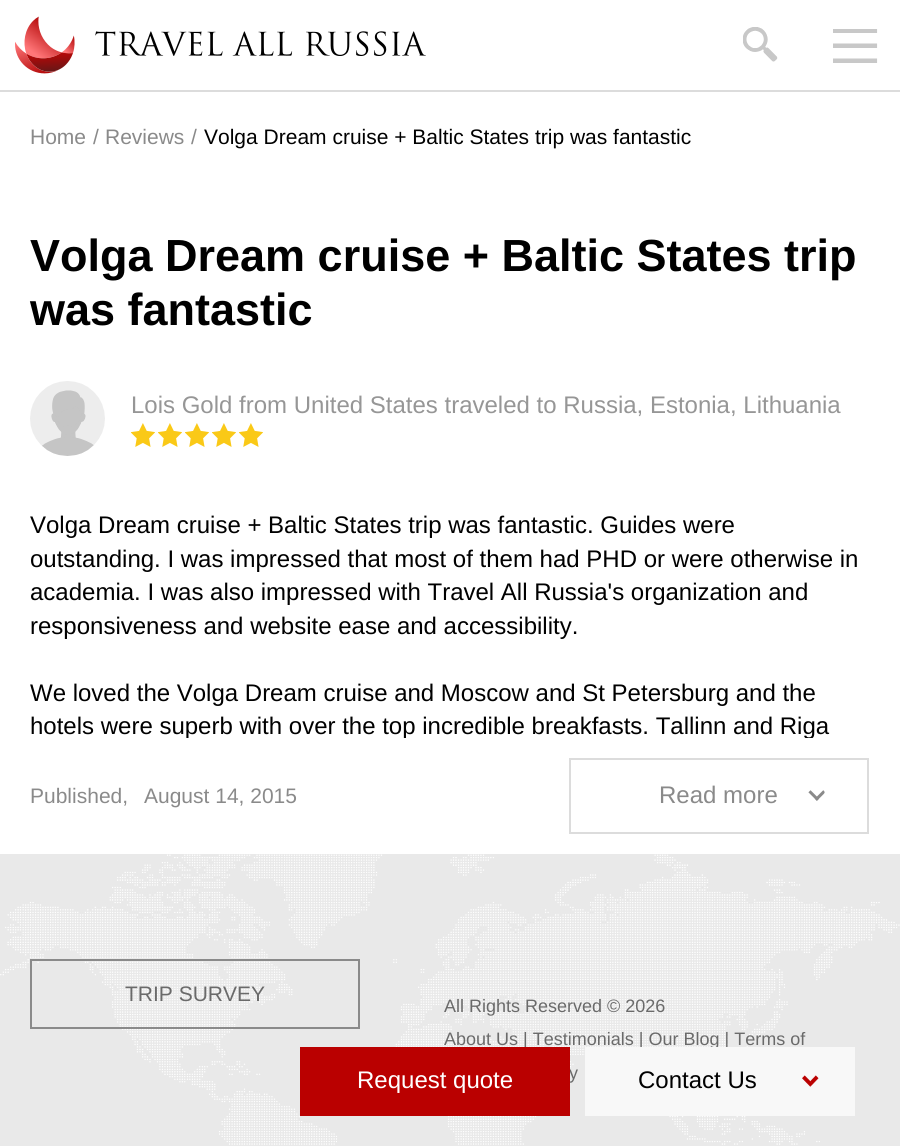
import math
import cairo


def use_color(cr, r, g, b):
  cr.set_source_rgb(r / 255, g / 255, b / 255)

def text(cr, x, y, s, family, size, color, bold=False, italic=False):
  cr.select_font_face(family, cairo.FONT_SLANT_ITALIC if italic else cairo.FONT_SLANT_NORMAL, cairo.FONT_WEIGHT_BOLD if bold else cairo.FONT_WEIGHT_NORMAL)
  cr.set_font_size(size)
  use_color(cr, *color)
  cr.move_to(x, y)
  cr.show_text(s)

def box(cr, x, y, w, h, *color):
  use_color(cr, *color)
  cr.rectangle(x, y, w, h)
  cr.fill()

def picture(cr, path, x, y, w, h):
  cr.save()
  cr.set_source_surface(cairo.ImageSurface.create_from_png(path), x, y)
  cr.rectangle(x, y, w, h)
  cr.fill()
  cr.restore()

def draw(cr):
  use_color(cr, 255, 255, 255)
  cr.paint()
  box(cr, 0, 90, 900, 2, 220, 220, 220)
  picture(cr, "img_01.png", 15, 16, 60, 58)
  picture(cr, "img_02.png", 95, 31, 331, 25)
  picture(cr, "img_03.png", 743, 27, 35, 35)
  picture(cr, "img_04.png", 833, 29, 45, 34)
  picture(cr, "img_05.png", 30, 381, 75, 75)
  picture(cr, "img_06.png", 131, 423, 24, 24)
  picture(cr, "img_06.png", 158, 423, 24, 24)
  picture(cr, "img_06.png", 185, 423, 24, 24)
  picture(cr, "img_06.png", 212, 423, 24, 24)
  picture(cr, "img_06.png", 239, 423, 24, 24)
  cr.rectangle(570, 759, 298, 74)
  cr.stroke()
  picture(cr, "img_07.png", 808, 790, 17, 11)
  box(cr, 0, 854, 900, 292, 233, 233, 233)
  picture(cr, "img_08.png", 0, 854, 900, 291)
  cr.rectangle(31, 960, 328, 68)
  use_color(cr, 138, 138, 138)
  cr.stroke()
  text(cr, 30, 144, "Home", "Liberation Sans", 21, (138, 138, 138))
  text(cr, 93, 144, "/", "Liberation Sans", 21, (138, 138, 138))
  text(cr, 105, 144, "Reviews", "Liberation Sans", 21, (138, 138, 138))
  text(cr, 191, 144, "/", "Liberation Sans", 21, (138, 138, 138))
  text(cr, 204, 144, "Volga Dream cruise + Baltic States trip was fantastic", "Liberation Sans", 21, (0, 0, 0))
  text(cr, 30, 271, "Volga Dream cruise + Baltic States trip", "Liberation Sans", 45, (0, 0, 0), bold=True)
  text(cr, 30, 325, "was fantastic", "Liberation Sans", 45, (0, 0, 0), bold=True)
  text(cr, 131, 413, "Lois Gold from United States traveled to Russia, Estonia, Lithuania", "Liberation Sans", 24, (150, 150, 150))
  text(cr, 30, 533, "Volga Dream cruise + Baltic States trip was fantastic. Guides were", "Liberation Sans", 24, (0, 0, 0))
  text(cr, 30, 567, "outstanding. I was impressed that most of them had PHD or were otherwise in", "Liberation Sans", 24, (0, 0, 0))
  text(cr, 30, 600, "academia. I was also impressed with Travel All Russia's organization and", "Liberation Sans", 24, (0, 0, 0))
  text(cr, 30, 634, "responsiveness and website ease and accessibility.", "Liberation Sans", 24, (0, 0, 0))
  text(cr, 30, 701, "We loved the Volga Dream cruise and Moscow and St Petersburg and the", "Liberation Sans", 24, (0, 0, 0))
  cr.save()
  cr.rectangle(30, 509, 840, 229)
  cr.clip()
  text(cr, 30, 734, "hotels were superb with over the top incredible breakfasts. Tallinn and Riga", "Liberation Sans", 24, (0, 0, 0))
  cr.restore()
  text(cr, 30, 803, "Published,", "Liberation Sans", 21, (138, 138, 138))
  text(cr, 144, 803, "August 14, 2015", "Liberation Sans", 21, (138, 138, 138))
  text(cr, 659, 803, "Read more", "Liberation Sans", 24, (138, 138, 138))
  text(cr, 125, 1001, "TRIP SURVEY", "Liberation Sans", 21, (106, 106, 106))
  text(cr, 444, 1012, "All Rights Reserved © 2026", "Liberation Sans", 18, (106, 106, 106))
  text(cr, 444, 1045, "About Us | Testimonials | Our Blog | Terms of", "Liberation Sans", 18, (106, 106, 106))
  text(cr, 569, 1079, "y", "Liberation Sans", 18, (106, 106, 106))
  box(cr, 300, 1047, 270, 69, 186, 0, 0)
  text(cr, 357, 1088, "Request quote", "Liberation Sans", 24, (255, 255, 255))
  box(cr, 585, 1047, 270, 69, 248, 248, 248)
  text(cr, 638, 1088, "Contact Us", "Liberation Sans", 24, (0, 0, 0))
  picture(cr, "img_09.png", 802, 1075, 17, 12)


surface = cairo.ImageSurface(cairo.FORMAT_RGB24, 900, 1146)
cr = cairo.Context(surface)
options = cairo.FontOptions()
options.set_hint_metrics(cairo.HINT_METRICS_OFF)
options.set_hint_style(cairo.HINT_STYLE_NONE)
cr.set_font_options(options)
cr.set_miter_limit(4)
draw(cr)
surface.write_to_png("out.png")
